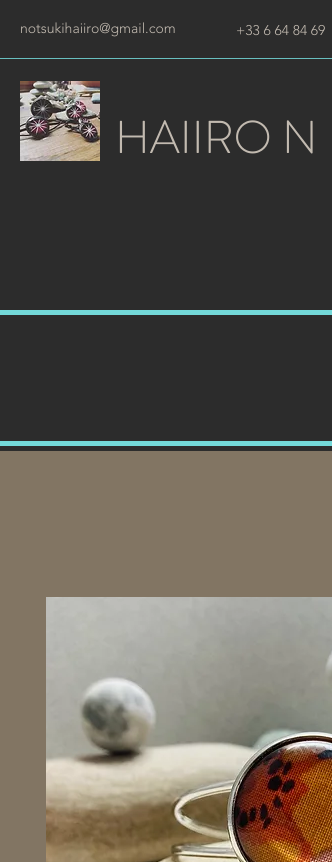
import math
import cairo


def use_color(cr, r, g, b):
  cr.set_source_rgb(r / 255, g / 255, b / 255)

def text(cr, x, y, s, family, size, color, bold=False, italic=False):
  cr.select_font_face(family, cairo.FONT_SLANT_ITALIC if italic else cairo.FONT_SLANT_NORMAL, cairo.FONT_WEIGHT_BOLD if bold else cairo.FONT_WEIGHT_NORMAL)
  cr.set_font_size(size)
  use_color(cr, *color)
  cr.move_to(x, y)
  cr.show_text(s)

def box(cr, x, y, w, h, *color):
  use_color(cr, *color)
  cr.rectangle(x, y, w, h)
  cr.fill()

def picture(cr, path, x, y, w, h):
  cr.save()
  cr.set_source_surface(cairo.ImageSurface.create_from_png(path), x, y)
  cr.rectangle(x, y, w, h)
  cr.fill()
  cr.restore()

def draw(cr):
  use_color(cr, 130, 117, 99)
  cr.paint()
  box(cr, 0, 0, 332, 451, 44, 44, 44)
  box(cr, 0, 58, 332, 1, 104, 191, 191)
  picture(cr, "img_01.png", 20, 81, 80, 80)
  box(cr, 0, 310, 332, 5, 115, 217, 217)
  box(cr, 0, 441, 332, 5, 115, 217, 217)
  picture(cr, "img_02.png", 46, 597, 286, 265)
  text(cr, 20, 33, "notsukihaiiro@gmail.com", "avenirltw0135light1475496 Light", 14, (194, 186, 176))
  text(cr, 236, 35, "+33 6 64 84 69", "avenirltw0135light1475496 Light", 14, (194, 186, 176))
  text(cr, 115, 153, "HAIIRO N", "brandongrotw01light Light", 46, (194, 186, 176))


surface = cairo.ImageSurface(cairo.FORMAT_RGB24, 332, 862)
cr = cairo.Context(surface)
options = cairo.FontOptions()
options.set_hint_metrics(cairo.HINT_METRICS_OFF)
options.set_hint_style(cairo.HINT_STYLE_NONE)
cr.set_font_options(options)
cr.set_miter_limit(4)
draw(cr)
surface.write_to_png("out.png")
